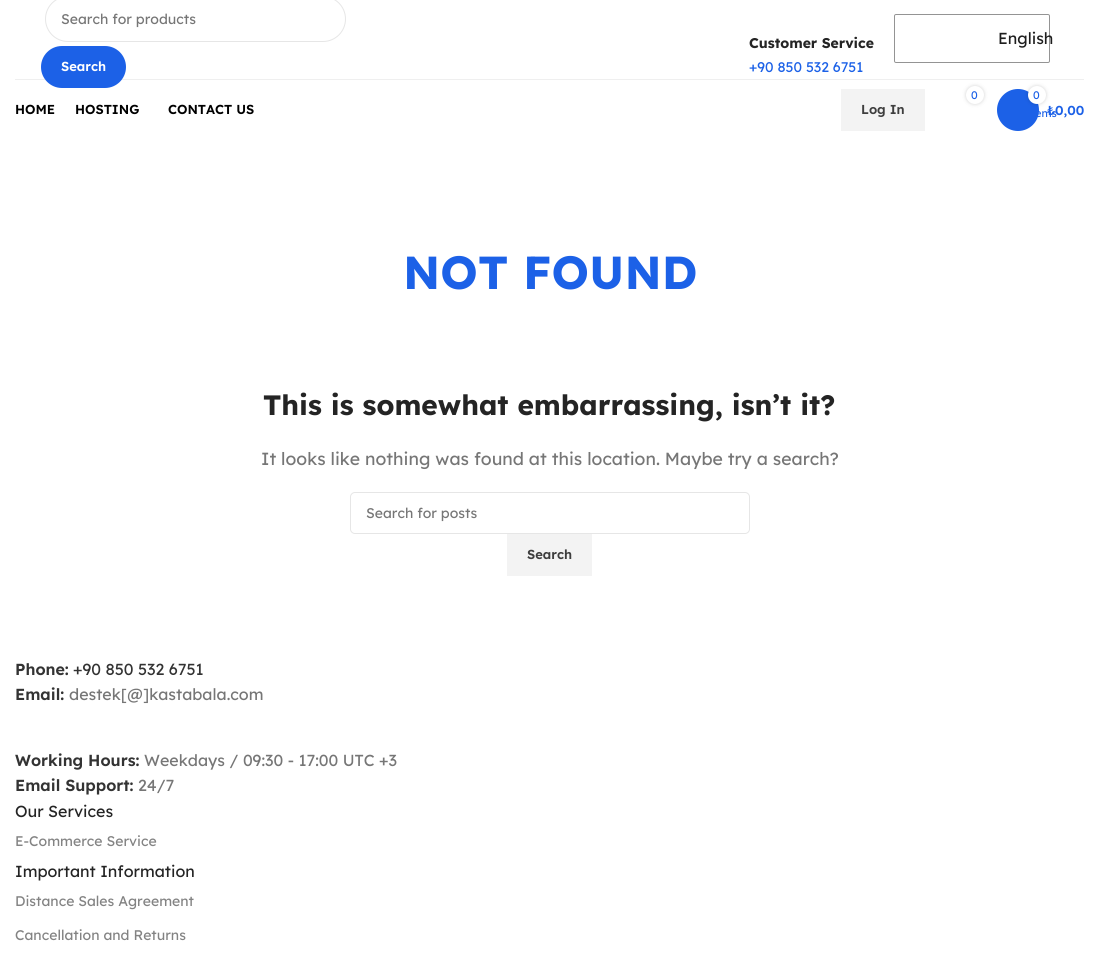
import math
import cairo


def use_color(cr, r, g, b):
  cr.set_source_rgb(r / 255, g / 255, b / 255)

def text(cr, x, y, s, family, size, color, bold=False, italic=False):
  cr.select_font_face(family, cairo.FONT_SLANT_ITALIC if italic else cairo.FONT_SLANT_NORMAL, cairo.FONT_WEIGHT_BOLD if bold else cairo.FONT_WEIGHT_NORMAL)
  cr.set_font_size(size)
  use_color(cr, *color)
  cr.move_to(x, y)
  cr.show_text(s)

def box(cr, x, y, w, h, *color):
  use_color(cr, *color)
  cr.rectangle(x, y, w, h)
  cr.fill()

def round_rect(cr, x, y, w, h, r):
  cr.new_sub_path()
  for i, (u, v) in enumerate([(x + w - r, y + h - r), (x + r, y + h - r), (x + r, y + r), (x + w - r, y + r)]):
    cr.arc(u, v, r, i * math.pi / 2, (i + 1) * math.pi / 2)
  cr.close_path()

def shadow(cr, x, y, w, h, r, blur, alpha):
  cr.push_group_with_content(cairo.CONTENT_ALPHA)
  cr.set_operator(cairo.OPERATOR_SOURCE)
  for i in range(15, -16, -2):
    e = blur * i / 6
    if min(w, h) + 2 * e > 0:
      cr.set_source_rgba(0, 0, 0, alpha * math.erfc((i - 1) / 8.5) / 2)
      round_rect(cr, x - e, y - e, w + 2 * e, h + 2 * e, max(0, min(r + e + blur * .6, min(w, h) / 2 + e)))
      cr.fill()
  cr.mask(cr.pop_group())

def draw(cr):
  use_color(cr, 255, 255, 255)
  cr.paint()
  box(cr, 15, 79, 1069, 1, 239, 239, 239)
  round_rect(cr, 45.5, -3.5, 300, 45, 22.5)
  use_color(cr, 230, 230, 230)
  cr.set_line_width(1)
  cr.stroke()
  use_color(cr, 28, 97, 231)
  round_rect(cr, 41, 46, 85, 42, 21)
  cr.fill()
  round_rect(cr, 894.5, 14.5, 155, 48, 1.5)
  use_color(cr, 148, 148, 148)
  cr.stroke()
  box(cr, 841, 89, 84, 42, 243, 243, 243)
  use_color(cr, 0, 0, 0)
  shadow(cr, 966, 86, 18, 18, 9, 2, 0.17)
  use_color(cr, 255, 255, 255)
  cr.arc(975, 95, 9, 0, 2 * math.pi)
  cr.fill()
  use_color(cr, 28, 97, 231)
  cr.arc(1018, 110, 21, 0, 2 * math.pi)
  cr.fill()
  use_color(cr, 0, 0, 0)
  shadow(cr, 1028, 86, 18, 18, 9, 2, 0.17)
  use_color(cr, 255, 255, 255)
  cr.arc(1037, 95, 9, 0, 2 * math.pi)
  cr.fill()
  round_rect(cr, 350.5, 492.5, 399, 41, 4.5)
  use_color(cr, 230, 230, 230)
  cr.stroke()
  box(cr, 507, 534, 85, 42, 243, 243, 243)
  text(cr, 61, 24, "Search for products", "Lexend", 14, (118, 118, 118))
  text(cr, 61, 71, "Search", "Lexend SemiBold", 13, (255, 255, 255))
  text(cr, 749, 48, "Customer Service", "Lexend", 14, (36, 36, 36), bold=True)
  text(cr, 749, 72, "+90 850 532 6751", "Lexend", 14, (28, 97, 231))
  text(cr, 998, 44, "English", "Lexend", 16, (30, 30, 30))
  text(cr, 15, 114, "HOME", "Lexend SemiBold", 13, (0, 0, 0))
  text(cr, 75, 114, "HOSTING", "Lexend SemiBold", 13, (0, 0, 0))
  text(cr, 168, 114, "CONTACT US", "Lexend SemiBold", 13, (0, 0, 0))
  text(cr, 861, 114, "Log In", "Lexend SemiBold", 13, (62, 62, 62))
  text(cr, 971, 99, "0", "Lexend", 11, (28, 97, 231))
  text(cr, 1033, 99, "0", "Lexend", 11, (28, 97, 231))
  text(cr, 1047, 115, "₺0,00", "Lexend SemiBold", 13, (28, 97, 231))
  text(cr, 1035, 117, "ems", "Lexend", 11, (28, 97, 231))
  text(cr, 403, 289, "NOT FOUND", "Lexend", 46.25, (28, 97, 231), bold=True)
  text(cr, 263, 415, "This is somewhat embarrassing, isn’t it?", "Lexend", 28, (36, 36, 36), bold=True)
  text(cr, 261, 465, "It looks like nothing was found at this location. Maybe try a search?", "Lexend", 17.6, (118, 118, 118))
  text(cr, 366, 518, "Search for posts", "Lexend", 14, (118, 118, 118))
  text(cr, 527, 559, "Search", "Lexend SemiBold", 13, (62, 62, 62))
  text(cr, 15, 675, "Phone:", "Lexend SemiBold", 16, (51, 51, 51))
  text(cr, 73, 675, "+90 850 532 6751", "Lexend", 16, (51, 51, 51))
  text(cr, 15, 700, "Email:", "Lexend SemiBold", 16, (51, 51, 51))
  text(cr, 69, 700, "destek[@]kastabala.com", "Lexend", 16, (118, 118, 118))
  text(cr, 15, 766, "Working Hours:", "Lexend SemiBold", 16, (51, 51, 51))
  text(cr, 144, 766, "Weekdays / 09:30 - 17:00 UTC +3", "Lexend", 16, (118, 118, 118))
  text(cr, 15, 791, "Email Support:", "Lexend SemiBold", 16, (51, 51, 51))
  text(cr, 138, 791, "24/7", "Lexend", 16, (118, 118, 118))
  text(cr, 15, 817, "Our Services", "Lexend", 16, (36, 36, 36))
  text(cr, 15, 846, "E-Commerce Service", "Lexend", 14, (131, 131, 131))
  text(cr, 15, 877, "Important Information", "Lexend", 16, (36, 36, 36))
  text(cr, 15, 906, "Distance Sales Agreement", "Lexend", 14, (131, 131, 131))
  text(cr, 15, 940, "Cancellation and Returns", "Lexend", 14, (131, 131, 131))


surface = cairo.ImageSurface(cairo.FORMAT_RGB24, 1099, 953)
cr = cairo.Context(surface)
options = cairo.FontOptions()
options.set_hint_metrics(cairo.HINT_METRICS_OFF)
options.set_hint_style(cairo.HINT_STYLE_NONE)
cr.set_font_options(options)
cr.set_miter_limit(4)
draw(cr)
surface.write_to_png("out.png")
